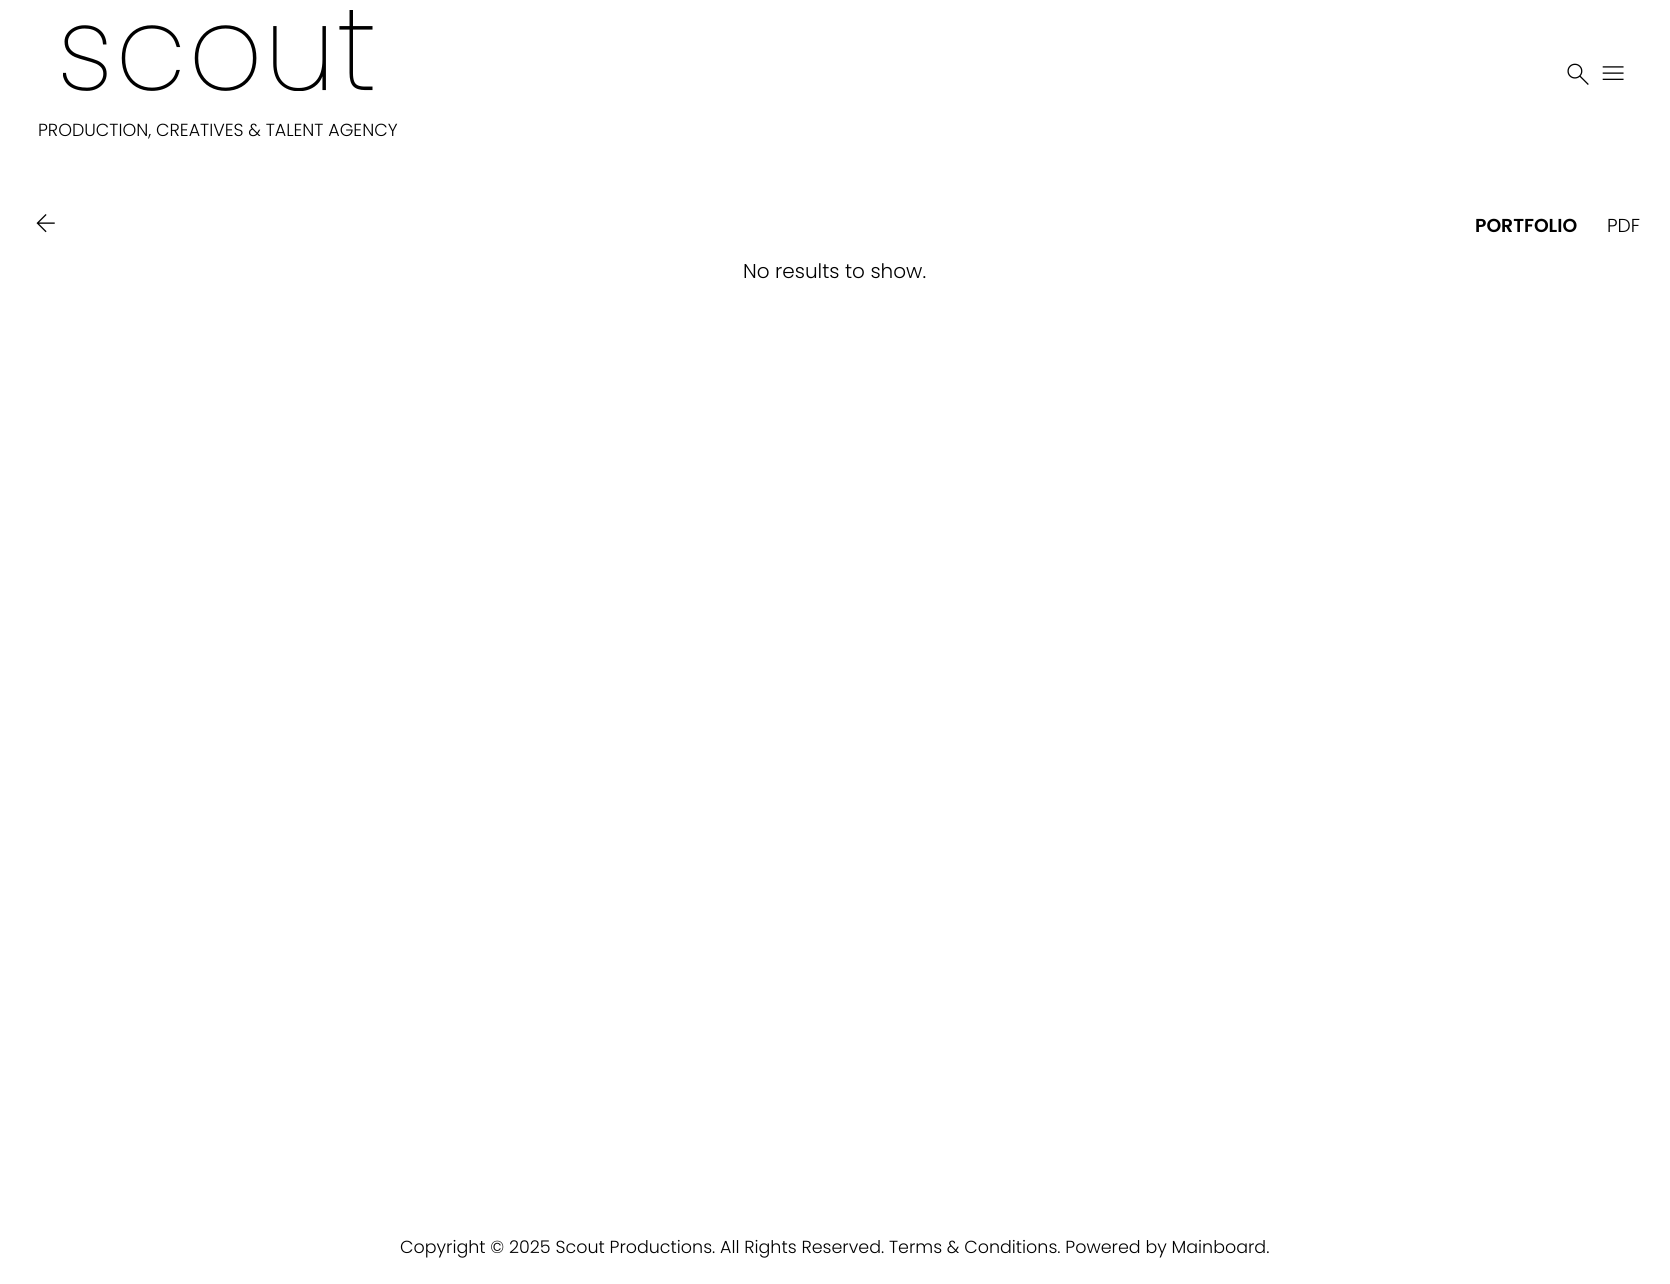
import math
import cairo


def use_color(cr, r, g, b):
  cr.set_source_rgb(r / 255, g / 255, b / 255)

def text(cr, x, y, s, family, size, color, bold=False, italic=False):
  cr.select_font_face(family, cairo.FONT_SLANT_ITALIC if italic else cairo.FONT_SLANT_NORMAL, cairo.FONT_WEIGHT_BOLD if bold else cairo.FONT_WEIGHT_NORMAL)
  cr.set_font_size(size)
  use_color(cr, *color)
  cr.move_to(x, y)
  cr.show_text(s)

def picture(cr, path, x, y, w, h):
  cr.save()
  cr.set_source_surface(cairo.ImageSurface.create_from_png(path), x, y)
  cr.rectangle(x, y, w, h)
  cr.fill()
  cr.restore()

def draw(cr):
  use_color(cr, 255, 255, 255)
  cr.paint()
  picture(cr, "img_01.png", 1567, 63, 22, 22)
  picture(cr, "img_02.png", 1602, 66, 22, 14)
  picture(cr, "img_03.png", 63, 10, 310, 81)
  picture(cr, "img_04.png", 36, 214, 19, 19)
  text(cr, 38, 136, "PRODUCTION, CREATIVES & TALENT AGENCY", "Poppins Light", 17.5, (0, 0, 0))
  text(cr, 1475, 232, "PORTFOLIO", "Poppins SemiBold", 18.75, (0, 0, 0))
  text(cr, 1607, 232, "PDF", "Poppins Light", 18.75, (0, 0, 0))
  text(cr, 743, 278, "No results to show.", "Poppins Light", 20, (0, 0, 0))
  text(cr, 400, 1253, "Copyright © 2025 Scout Productions. All Rights Reserved. Terms & Conditions. Powered by Mainboard.", "Poppins Light", 17.5, (0, 0, 0))


surface = cairo.ImageSurface(cairo.FORMAT_RGB24, 1670, 1284)
cr = cairo.Context(surface)
options = cairo.FontOptions()
options.set_hint_metrics(cairo.HINT_METRICS_OFF)
options.set_hint_style(cairo.HINT_STYLE_NONE)
cr.set_font_options(options)
cr.set_miter_limit(4)
draw(cr)
surface.write_to_png("out.png")
